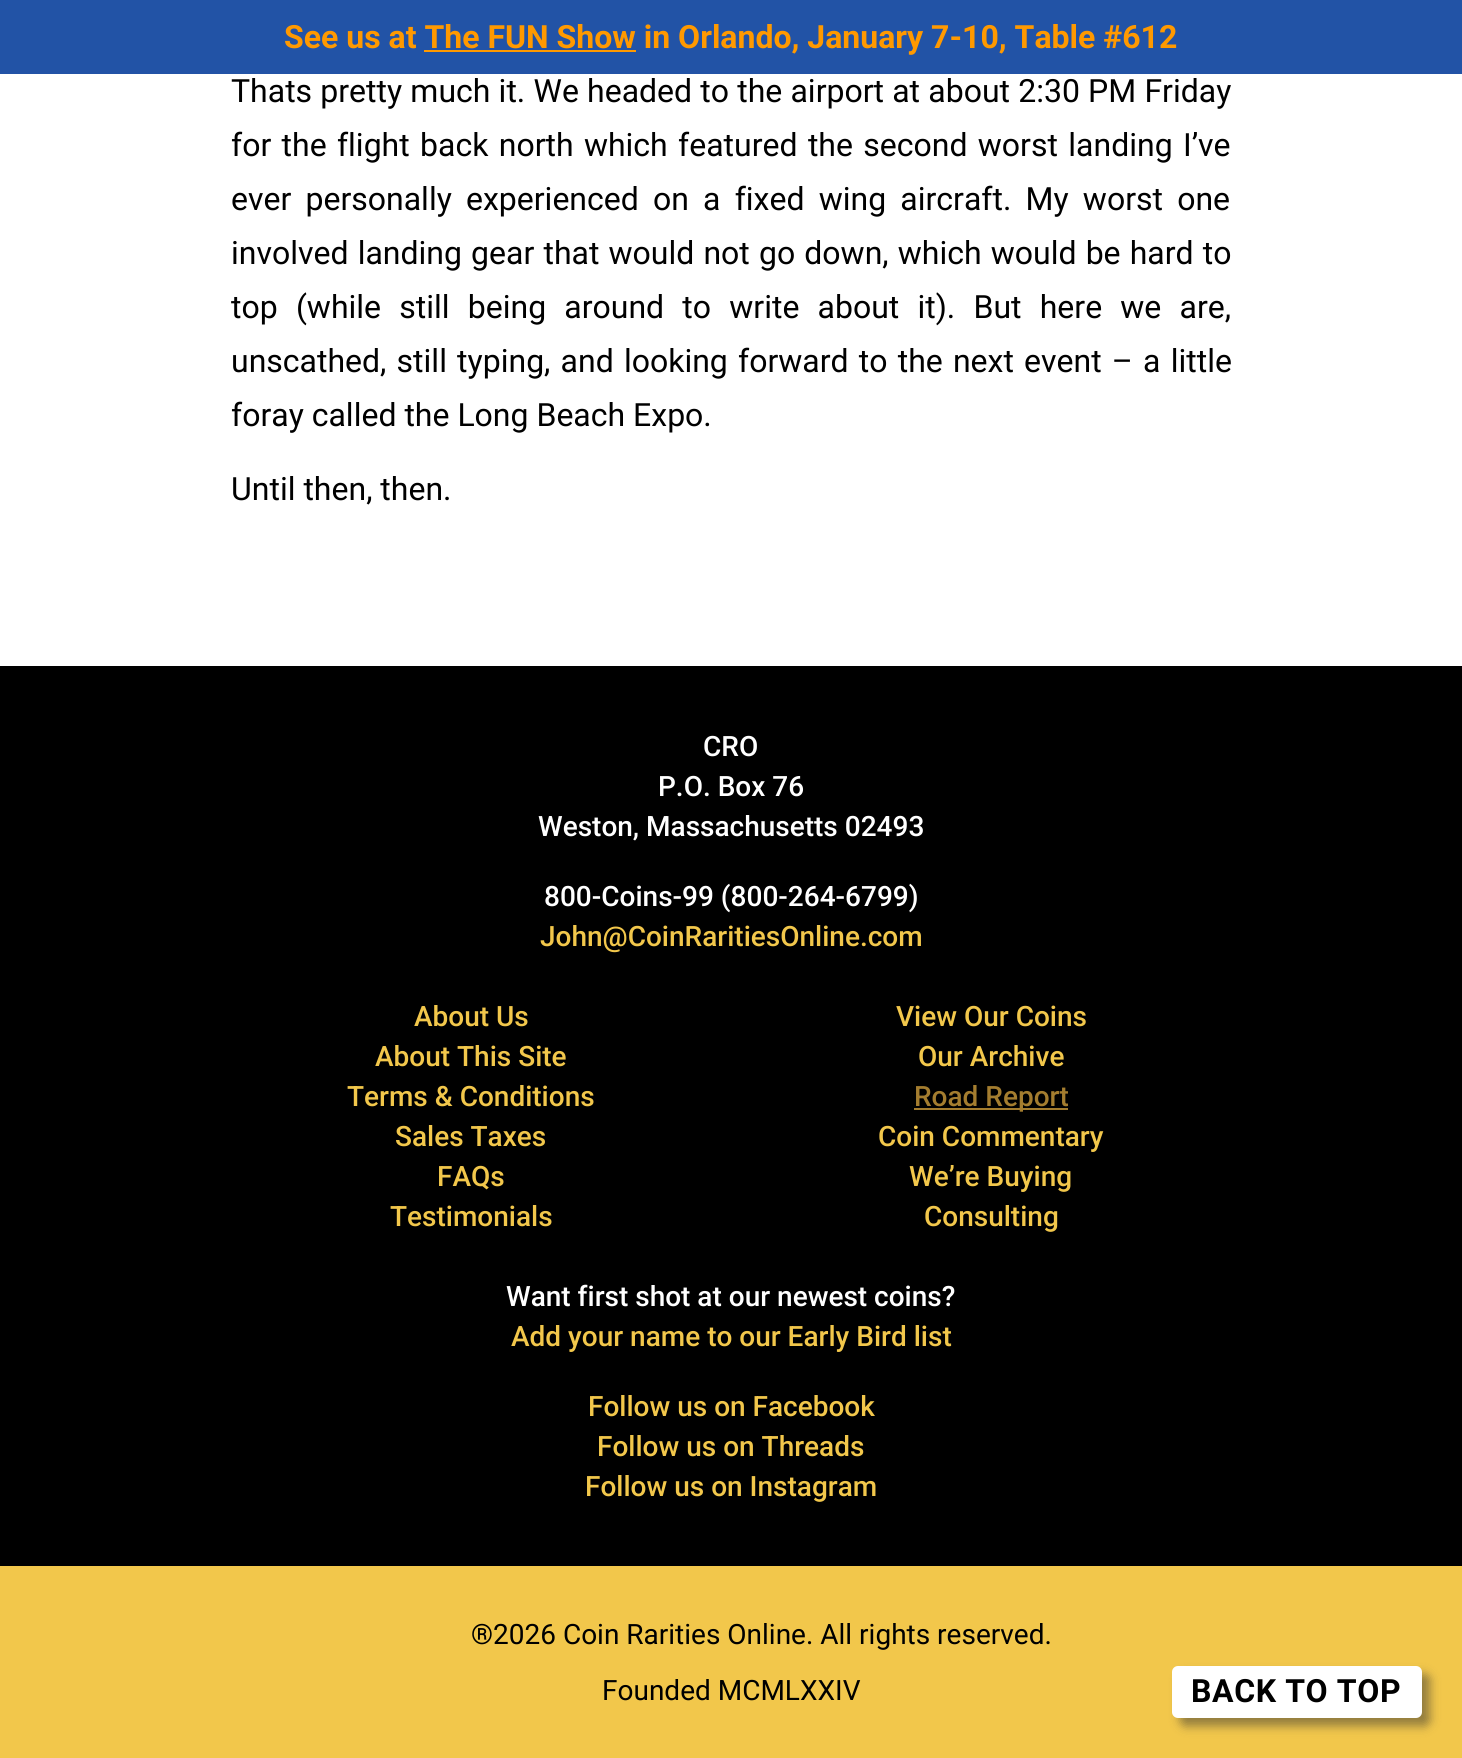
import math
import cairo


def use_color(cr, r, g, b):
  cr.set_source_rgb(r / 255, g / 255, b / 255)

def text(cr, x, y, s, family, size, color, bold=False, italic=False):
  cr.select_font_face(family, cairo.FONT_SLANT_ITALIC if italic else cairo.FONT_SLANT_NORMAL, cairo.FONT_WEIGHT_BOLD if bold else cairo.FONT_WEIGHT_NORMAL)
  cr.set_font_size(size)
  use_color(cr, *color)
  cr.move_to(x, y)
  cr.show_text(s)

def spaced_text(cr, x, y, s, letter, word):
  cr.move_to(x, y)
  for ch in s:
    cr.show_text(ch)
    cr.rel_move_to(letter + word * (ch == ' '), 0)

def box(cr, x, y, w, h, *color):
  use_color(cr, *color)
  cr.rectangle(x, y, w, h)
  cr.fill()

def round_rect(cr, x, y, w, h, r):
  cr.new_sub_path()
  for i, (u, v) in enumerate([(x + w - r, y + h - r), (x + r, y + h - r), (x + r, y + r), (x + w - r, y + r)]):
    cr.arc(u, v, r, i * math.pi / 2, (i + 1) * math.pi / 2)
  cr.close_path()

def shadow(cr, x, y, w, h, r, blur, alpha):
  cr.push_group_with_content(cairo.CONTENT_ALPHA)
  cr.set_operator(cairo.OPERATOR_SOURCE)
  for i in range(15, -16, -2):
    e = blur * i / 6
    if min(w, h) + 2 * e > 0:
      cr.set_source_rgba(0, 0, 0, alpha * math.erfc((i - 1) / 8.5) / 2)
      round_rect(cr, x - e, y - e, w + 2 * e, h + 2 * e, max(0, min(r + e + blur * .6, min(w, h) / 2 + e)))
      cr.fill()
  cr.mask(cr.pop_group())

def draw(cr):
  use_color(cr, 242, 199, 75)
  cr.paint()
  box(cr, 0, 0, 1462, 74, 34, 83, 166)
  box(cr, 424, 50, 212, 2, 255, 153, 0)
  box(cr, 0, 74, 1462, 592, 255, 255, 255)
  box(cr, 0, 666, 1462, 900, 0, 0, 0)
  box(cr, 914, 1108, 154, 2, 164, 125, 47)
  use_color(cr, 50, 50, 50)
  shadow(cr, 1180, 1674, 250, 52, 6, 5, 0.5)
  use_color(cr, 255, 255, 255)
  round_rect(cr, 1172, 1666, 250, 52, 6)
  cr.fill()
  text(cr, 284, 48, "See us at The FUN Show in Orlando, January 7-10, Table #612", "Roboto", 32, (255, 153, 0), bold=True)
  cr.select_font_face("Roboto")
  use_color(cr, 0, 0, 0)
  spaced_text(cr, 231, 102, "Thats pretty much it. We headed to the airport at about 2:30 PM Friday", 0, 0.25)
  spaced_text(cr, 231, 156, "for the flight back north which featured the second worst landing I’ve", 0, 2.4)
  spaced_text(cr, 231, 210, "ever personally experienced on a fixed wing aircraft. My worst one", 0, 6.25)
  spaced_text(cr, 231, 264, "involved landing gear that would not go down, which would be hard to", 0, 1.2)
  spaced_text(cr, 231, 318, "top (while still being around to write about it). But here we are,", 0, 10.25)
  spaced_text(cr, 231, 372, "unscathed, still typing, and looking forward to the next event – a little", 0, 2.25)
  text(cr, 231, 426, "foray called the Long Beach Expo.", "Roboto", 32, (0, 0, 0))
  text(cr, 231, 500, "Until then, then.", "Roboto", 32, (0, 0, 0))
  text(cr, 703, 756, "CRO", "Roboto Medium", 28, (255, 255, 255))
  text(cr, 658, 796, "P.O. Box 76", "Roboto Medium", 28, (255, 255, 255))
  text(cr, 538, 836, "Weston, Massachusetts 02493", "Roboto Medium", 28, (255, 255, 255))
  text(cr, 544, 906, "800-Coins-99 (800-264-6799)", "Roboto Medium", 28, (255, 255, 255))
  text(cr, 540, 946, "John@CoinRaritiesOnline.com", "Roboto Medium", 28, (242, 199, 75))
  text(cr, 414, 1026, "About Us", "Roboto Medium", 28, (242, 199, 75))
  text(cr, 375, 1066, "About This Site", "Roboto Medium", 28, (242, 199, 75))
  text(cr, 347, 1106, "Terms & Conditions", "Roboto Medium", 28, (242, 199, 75))
  text(cr, 395, 1146, "Sales Taxes", "Roboto Medium", 28, (242, 199, 75))
  text(cr, 437, 1186, "FAQs", "Roboto Medium", 28, (242, 199, 75))
  text(cr, 390, 1226, "Testimonials", "Roboto Medium", 28, (242, 199, 75))
  text(cr, 896, 1026, "View Our Coins", "Roboto Medium", 28, (242, 199, 75))
  text(cr, 918, 1066, "Our Archive", "Roboto Medium", 28, (242, 199, 75))
  text(cr, 914, 1106, "Road Report", "Roboto Medium", 28, (164, 125, 47))
  text(cr, 878, 1146, "Coin Commentary", "Roboto Medium", 28, (242, 199, 75))
  text(cr, 909, 1186, "We’re Buying", "Roboto Medium", 28, (242, 199, 75))
  text(cr, 924, 1226, "Consulting", "Roboto Medium", 28, (242, 199, 75))
  text(cr, 506, 1306, "Want first shot at our newest coins?", "Roboto Medium", 28, (255, 255, 255))
  text(cr, 511, 1346, "Add your name to our Early Bird list", "Roboto Medium", 28, (242, 199, 75))
  text(cr, 588, 1416, "Follow us on Facebook", "Roboto Medium", 28, (242, 199, 75))
  text(cr, 597, 1456, "Follow us on Threads", "Roboto Medium", 28, (242, 199, 75))
  text(cr, 585, 1496, "Follow us on Instagram", "Roboto Medium", 28, (242, 199, 75))
  text(cr, 471, 1644, "®2026 Coin Rarities Online. All rights reserved.", "Roboto", 28, (0, 0, 0))
  text(cr, 602, 1700, "Founded MCMLXXIV", "Roboto", 28, (0, 0, 0))
  cr.select_font_face("Roboto", cairo.FONT_SLANT_NORMAL, cairo.FONT_WEIGHT_BOLD)
  cr.set_font_size(32)
  spaced_text(cr, 1191, 1702, "BACK TO TOP", 0.6, 0)


surface = cairo.ImageSurface(cairo.FORMAT_RGB24, 1462, 1758)
cr = cairo.Context(surface)
options = cairo.FontOptions()
options.set_hint_metrics(cairo.HINT_METRICS_OFF)
options.set_hint_style(cairo.HINT_STYLE_NONE)
cr.set_font_options(options)
cr.set_miter_limit(4)
draw(cr)
surface.write_to_png("out.png")
